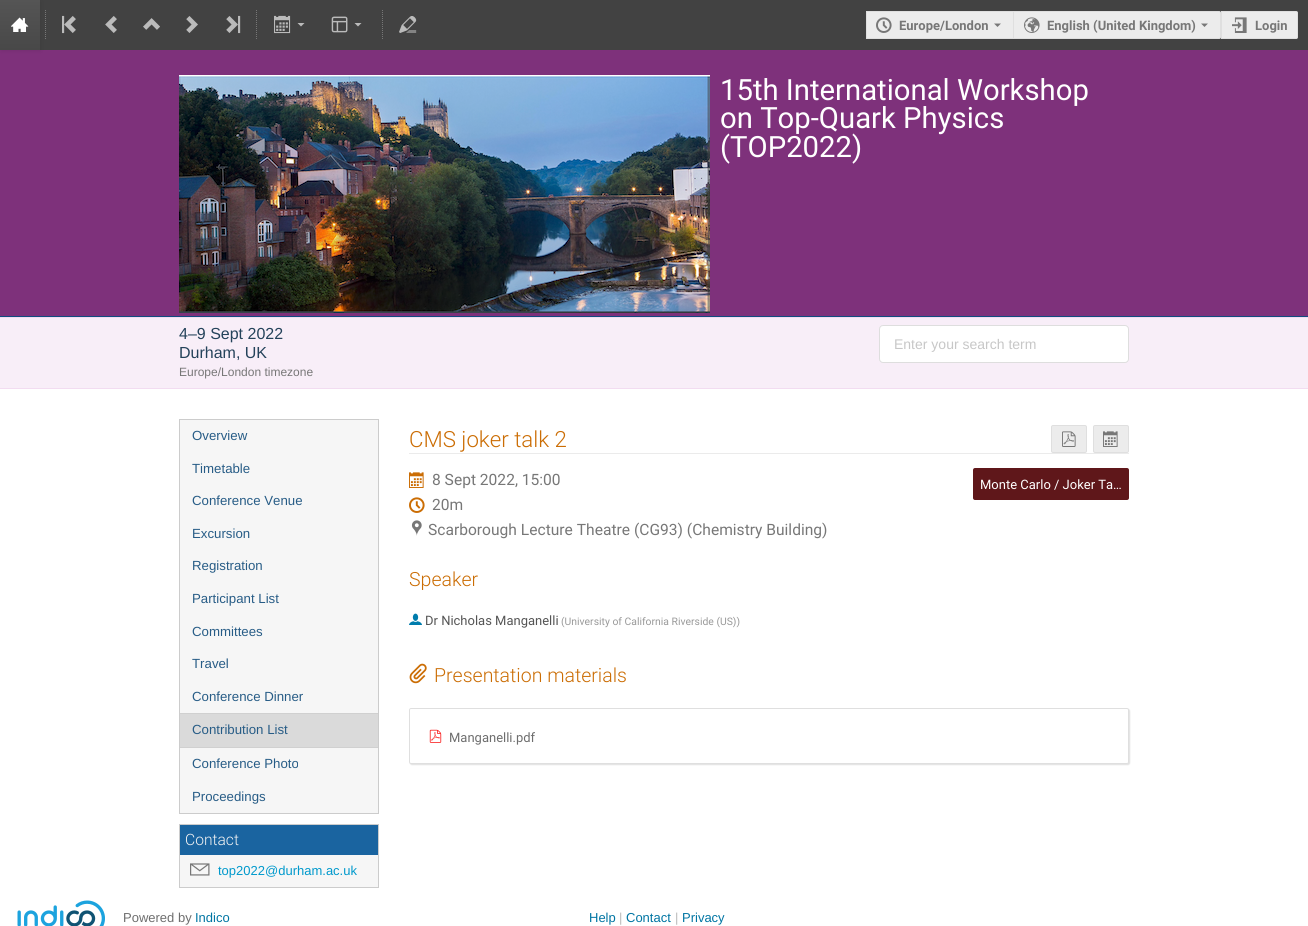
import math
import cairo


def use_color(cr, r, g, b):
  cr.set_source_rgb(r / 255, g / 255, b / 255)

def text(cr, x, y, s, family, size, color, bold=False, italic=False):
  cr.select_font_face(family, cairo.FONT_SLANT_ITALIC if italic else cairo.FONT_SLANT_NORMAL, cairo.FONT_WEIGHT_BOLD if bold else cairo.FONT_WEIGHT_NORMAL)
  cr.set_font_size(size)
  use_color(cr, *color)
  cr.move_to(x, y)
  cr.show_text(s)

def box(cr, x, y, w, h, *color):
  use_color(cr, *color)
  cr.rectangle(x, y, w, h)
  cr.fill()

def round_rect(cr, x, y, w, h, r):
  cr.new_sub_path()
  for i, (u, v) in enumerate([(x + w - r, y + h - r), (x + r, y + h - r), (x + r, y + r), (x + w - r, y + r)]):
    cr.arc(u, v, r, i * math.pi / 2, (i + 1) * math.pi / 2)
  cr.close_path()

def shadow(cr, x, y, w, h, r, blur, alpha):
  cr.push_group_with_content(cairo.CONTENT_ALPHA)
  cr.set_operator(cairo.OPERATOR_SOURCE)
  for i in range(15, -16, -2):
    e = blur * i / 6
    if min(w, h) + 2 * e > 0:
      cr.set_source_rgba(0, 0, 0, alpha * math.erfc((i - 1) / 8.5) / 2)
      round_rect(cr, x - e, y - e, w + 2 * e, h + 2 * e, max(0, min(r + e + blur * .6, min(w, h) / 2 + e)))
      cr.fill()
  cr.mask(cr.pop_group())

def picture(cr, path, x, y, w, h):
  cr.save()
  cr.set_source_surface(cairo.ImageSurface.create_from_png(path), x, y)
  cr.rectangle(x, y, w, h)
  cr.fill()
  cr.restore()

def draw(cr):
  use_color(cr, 255, 255, 255)
  cr.paint()
  box(cr, 40, 0, 1268, 50, 66, 66, 66)
  box(cr, 0, 50, 1308, 266, 126, 49, 123)
  use_color(cr, 20, 20, 20)
  shadow(cr, 1, 1, 40, 50, 0, 2, 0.1)
  gradient = cairo.LinearGradient(20, 0, 20, 50)
  gradient.add_color_stop_rgba(0, 0.333, 0.333, 0.333, 1)
  gradient.add_color_stop_rgba(1, 0.282, 0.282, 0.282, 1)
  cr.set_source(gradient)
  cr.rectangle(0, 0, 40, 50)
  cr.fill()
  picture(cr, "img_01.png", 11, 17, 18, 15)
  cr.new_path()
  cr.move_to(45.5, 10)
  cr.line_to(45.5, 40)
  use_color(cr, 119, 119, 119)
  cr.set_line_width(1)
  cr.set_dash([1, 1])
  cr.stroke()
  picture(cr, "img_02.png", 62, 15, 14, 19)
  picture(cr, "img_03.png", 105, 16, 12, 17)
  picture(cr, "img_04.png", 143, 18, 17, 12)
  picture(cr, "img_05.png", 186, 16, 12, 17)
  picture(cr, "img_06.png", 226, 15, 15, 19)
  cr.new_path()
  cr.move_to(256.5, 10)
  cr.line_to(256.5, 40)
  cr.stroke()
  picture(cr, "img_07.png", 274, 15, 17, 19)
  use_color(cr, 187, 187, 187)
  cr.new_path()
  cr.move_to(297.5, 23)
  cr.line_to(301, 26.5)
  cr.line_to(304.5, 23)
  cr.close_path()
  cr.fill()
  picture(cr, "img_08.png", 331, 16, 17, 17)
  cr.new_path()
  cr.move_to(354.5, 23)
  cr.line_to(358, 26.5)
  cr.line_to(361.5, 23)
  cr.close_path()
  cr.fill()
  cr.new_path()
  cr.move_to(382.5, 10)
  cr.line_to(382.5, 40)
  use_color(cr, 119, 119, 119)
  cr.stroke()
  picture(cr, "img_09.png", 399, 16, 18, 17)
  box(cr, 867, 12, 146, 26, 236, 236, 236)
  box(cr, 866, 11, 147, 1, 223, 223, 223)
  box(cr, 866, 38, 147, 1, 223, 223, 223)
  box(cr, 866, 11, 1, 28, 223, 223, 223)
  picture(cr, "img_10.png", 876, 17, 16, 16)
  use_color(cr, 119, 119, 119)
  cr.new_path()
  cr.move_to(994, 23.5)
  cr.line_to(997.5, 27)
  cr.line_to(1001, 23.5)
  cr.close_path()
  cr.fill()
  use_color(cr, 236, 236, 236)
  cr.new_path()
  cr.move_to(1013.5, 11.5)
  cr.line_to(1219, 11.5)
  cr.curve_to(1220, 11.5, 1220.5, 12, 1220.5, 13)
  cr.line_to(1220.5, 37)
  cr.curve_to(1220.5, 38, 1220, 38.5, 1219, 38.5)
  cr.line_to(1013.5, 38.5)
  cr.close_path()
  cr.fill_preserve()
  use_color(cr, 223, 223, 223)
  cr.set_dash([])
  cr.stroke()
  picture(cr, "img_11.png", 1024, 17, 16, 16)
  use_color(cr, 119, 119, 119)
  cr.new_path()
  cr.move_to(1201, 23.5)
  cr.line_to(1204.5, 27)
  cr.line_to(1208, 23.5)
  cr.close_path()
  cr.fill()
  use_color(cr, 236, 236, 236)
  cr.new_path()
  cr.move_to(1221.5, 11.5)
  cr.line_to(1296, 11.5)
  cr.curve_to(1297, 11.5, 1297.5, 12, 1297.5, 13)
  cr.line_to(1297.5, 37)
  cr.curve_to(1297.5, 38, 1297, 38.5, 1296, 38.5)
  cr.line_to(1221.5, 38.5)
  cr.close_path()
  cr.fill_preserve()
  use_color(cr, 223, 223, 223)
  cr.stroke()
  picture(cr, "img_12.png", 1232, 17, 15, 16)
  box(cr, 0, 316, 1308, 1, 15, 76, 128)
  picture(cr, "img_13.png", 179, 75, 531, 238)
  box(cr, 0, 318, 1308, 70, 248, 238, 248)
  box(cr, 0, 317, 1308, 1, 242, 220, 241)
  box(cr, 0, 388, 1308, 1, 242, 220, 241)
  use_color(cr, 255, 255, 255)
  round_rect(cr, 879, 325, 250, 38, 4)
  cr.fill()
  round_rect(cr, 879.5, 325.5, 249, 37, 3.5)
  cr.set_source_rgba(0.133, 0.141, 0.149, 0.15)
  cr.stroke()
  use_color(cr, 246, 246, 246)
  cr.rectangle(179.5, 419.5, 199, 394)
  cr.fill_preserve()
  use_color(cr, 204, 204, 204)
  cr.stroke()
  box(cr, 180, 714, 198, 33, 218, 218, 218)
  box(cr, 180, 713, 198, 1, 208, 208, 208)
  box(cr, 180, 747, 198, 1, 208, 208, 208)
  box(cr, 180, 855, 198, 32, 246, 246, 246)
  cr.rectangle(179.5, 824.5, 199, 63)
  use_color(cr, 204, 204, 204)
  cr.stroke()
  box(cr, 180, 825, 198, 30, 26, 100, 160)
  picture(cr, "img_14.png", 190, 863, 20, 13)
  box(cr, 409, 453, 720, 1, 235, 235, 235)
  use_color(cr, 236, 236, 236)
  round_rect(cr, 1051.5, 425.5, 35, 27, 1.5)
  cr.fill_preserve()
  use_color(cr, 223, 223, 223)
  cr.stroke()
  picture(cr, "img_15.png", 1062, 431, 14, 16)
  use_color(cr, 236, 236, 236)
  round_rect(cr, 1093.5, 425.5, 35, 27, 1.5)
  cr.fill_preserve()
  use_color(cr, 223, 223, 223)
  cr.stroke()
  picture(cr, "img_16.png", 1103, 431, 15, 16)
  picture(cr, "img_17.png", 409, 472, 15, 16)
  picture(cr, "img_18.png", 409, 497, 16, 16)
  picture(cr, "img_19.png", 411, 520, 11, 16)
  use_color(cr, 95, 23, 26)
  round_rect(cr, 973, 468, 156, 32, 2)
  cr.fill()
  picture(cr, "img_20.png", 409, 613, 13, 12)
  picture(cr, "img_21.png", 409, 663, 18, 21)
  use_color(cr, 225, 225, 225)
  shadow(cr, 410, 709, 720, 56, 2, 0.5, 1)
  use_color(cr, 255, 255, 255)
  round_rect(cr, 409.5, 708.5, 719, 55, 1.5)
  cr.fill_preserve()
  use_color(cr, 223, 223, 223)
  cr.stroke()
  picture(cr, "img_22.png", 429, 729, 13, 14)
  picture(cr, "img_23.png", 17, 900, 88, 26)
  text(cr, 899, 30, "Europe/London", "Roboto", 13, (119, 119, 119), bold=True)
  text(cr, 1047, 30, "English (United Kingdom)", "Roboto", 13, (119, 119, 119), bold=True)
  text(cr, 1255, 30, "Login", "Roboto", 13, (119, 119, 119), bold=True)
  text(cr, 720, 100, "15th International Workshop", "Roboto", 29.3, (255, 255, 255))
  text(cr, 720, 128, "on Top-Quark Physics", "Roboto", 29.3, (255, 255, 255))
  text(cr, 720, 157, "(TOP2022)", "Roboto", 29.3, (255, 255, 255))
  text(cr, 179, 339, "4–9 Sept 2022", "Liberation Sans", 16, (36, 66, 90))
  text(cr, 179, 358, "Durham, UK", "Liberation Sans", 16, (36, 66, 90))
  text(cr, 179, 376, "Europe/London timezone", "Liberation Sans", 12, (119, 119, 119))
  text(cr, 894, 349, "Enter your search term", "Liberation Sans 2", 14, (199, 199, 199))
  text(cr, 192, 440, "Overview", "Liberation Sans 2", 13.25, (39, 92, 134))
  text(cr, 192, 473, "Timetable", "Liberation Sans 2", 13.25, (39, 92, 134))
  text(cr, 192, 505, "Conference Venue", "Liberation Sans 2", 13.25, (39, 92, 134))
  text(cr, 192, 538, "Excursion", "Liberation Sans 2", 13.25, (39, 92, 134))
  text(cr, 192, 570, "Registration", "Liberation Sans 2", 13.25, (39, 92, 134))
  text(cr, 192, 603, "Participant List", "Liberation Sans 2", 13.25, (39, 92, 134))
  text(cr, 192, 636, "Committees", "Liberation Sans 2", 13.25, (39, 92, 134))
  text(cr, 192, 668, "Travel", "Liberation Sans 2", 13.25, (39, 92, 134))
  text(cr, 192, 701, "Conference Dinner", "Liberation Sans 2", 13.25, (39, 92, 134))
  text(cr, 192, 734, "Contribution List", "Liberation Sans 2", 13.25, (39, 92, 134))
  text(cr, 192, 768, "Conference Photo", "Liberation Sans 2", 13.25, (39, 92, 134))
  text(cr, 192, 801, "Proceedings", "Liberation Sans 2", 13.25, (39, 92, 134))
  text(cr, 185, 845, "Contact", "Roboto Light", 15.6, (243, 243, 243))
  text(cr, 218, 875, "top2022@durham.ac.uk", "Liberation Sans", 13, (0, 153, 204))
  text(cr, 409, 447, "CMS joker talk 2", "Roboto Light", 22.25, (203, 109, 4))
  text(cr, 432, 485, "8 Sept 2022, 15:00", "Roboto", 15.6, (119, 119, 119))
  text(cr, 432, 510, "20m", "Roboto", 15.6, (119, 119, 119))
  text(cr, 428, 535, "Scarborough Lecture Theatre (CG93) (Chemistry Building)", "Roboto", 15.6, (119, 119, 119))
  text(cr, 980, 489, "Monte Carlo / Joker Ta…", "Roboto", 13, (255, 255, 255))
  text(cr, 409, 586, "Speaker", "Roboto Light", 19.5, (203, 109, 4))
  text(cr, 425, 625, "Dr Nicholas Manganelli", "Roboto", 13, (85, 85, 85))
  text(cr, 561, 625, "(University of California Riverside (US))", "Roboto", 10.4, (153, 153, 153))
  text(cr, 434, 682, "Presentation materials", "Roboto Light", 19.5, (203, 109, 4))
  text(cr, 449, 742, "Manganelli.pdf", "Roboto", 13, (110, 110, 110))
  text(cr, 123, 922, "Powered by", "Liberation Sans", 13, (110, 110, 110))
  text(cr, 195, 922, "Indico", "Liberation Sans", 13, (0, 117, 163))
  text(cr, 589, 922, "Help", "Liberation Sans", 13, (0, 117, 163))
  text(cr, 619, 922, "|", "Liberation Sans", 13, (187, 187, 187))
  text(cr, 626, 922, "Contact", "Liberation Sans", 13, (0, 117, 163))
  text(cr, 675, 922, "|", "Liberation Sans", 13, (187, 187, 187))
  text(cr, 682, 922, "Privacy", "Liberation Sans", 13, (0, 117, 163))


surface = cairo.ImageSurface(cairo.FORMAT_RGB24, 1308, 926)
cr = cairo.Context(surface)
options = cairo.FontOptions()
options.set_hint_metrics(cairo.HINT_METRICS_OFF)
options.set_hint_style(cairo.HINT_STYLE_NONE)
cr.set_font_options(options)
cr.set_miter_limit(4)
draw(cr)
surface.write_to_png("out.png")
